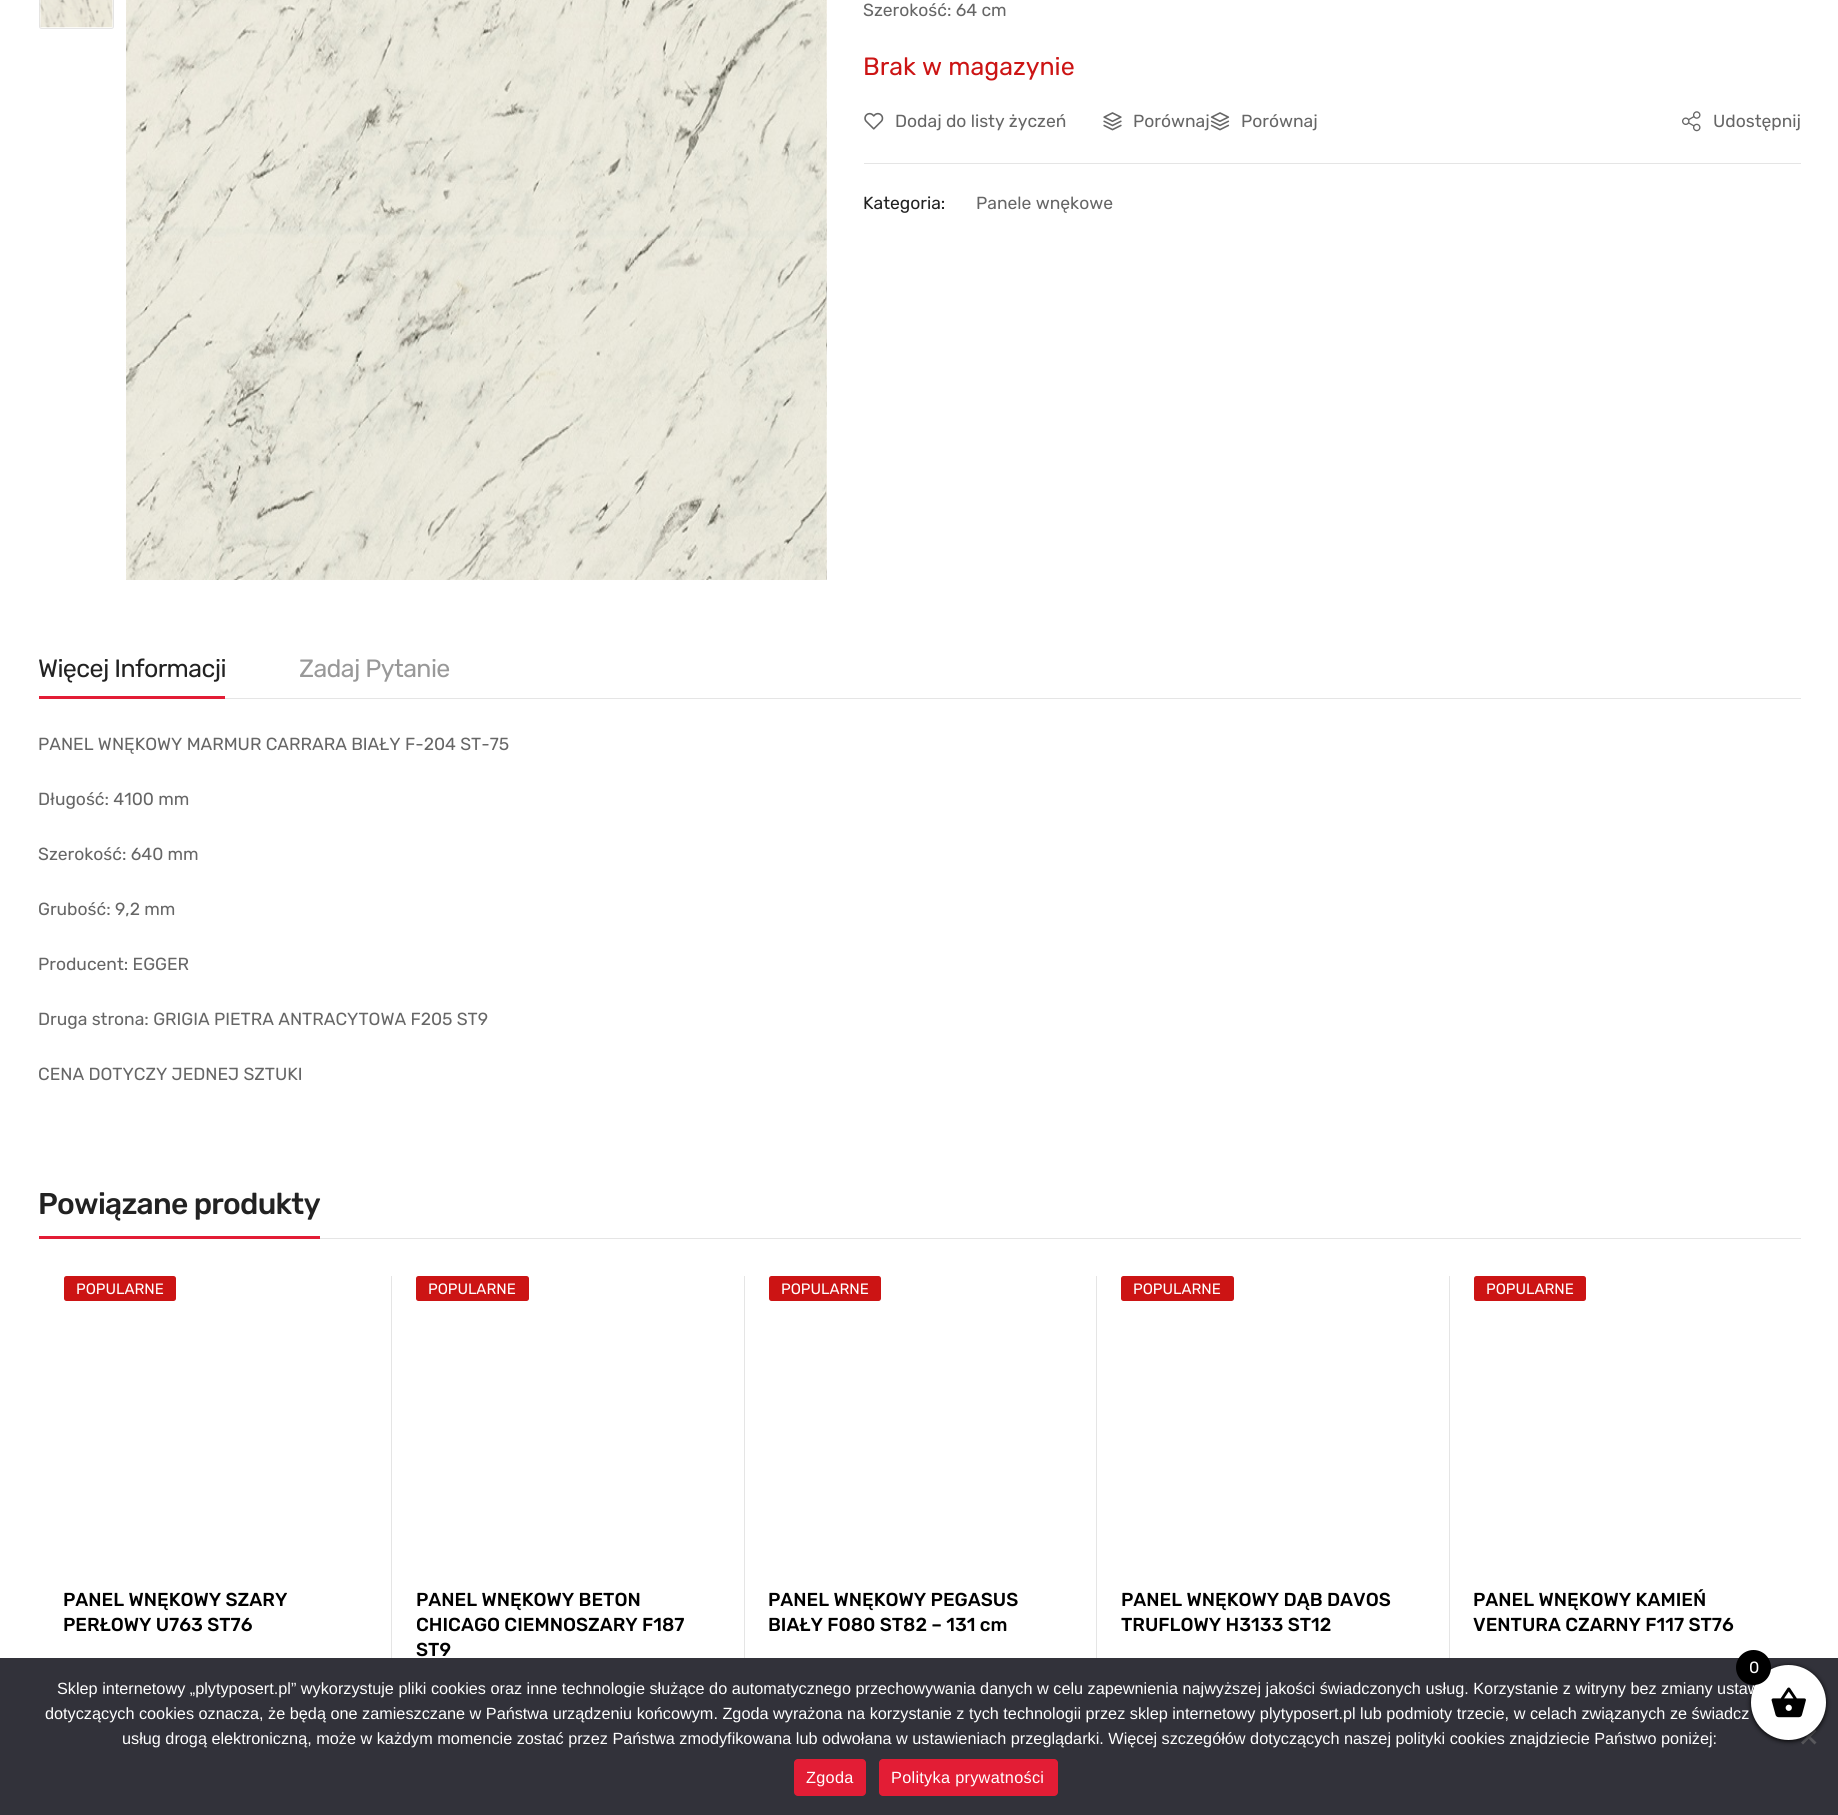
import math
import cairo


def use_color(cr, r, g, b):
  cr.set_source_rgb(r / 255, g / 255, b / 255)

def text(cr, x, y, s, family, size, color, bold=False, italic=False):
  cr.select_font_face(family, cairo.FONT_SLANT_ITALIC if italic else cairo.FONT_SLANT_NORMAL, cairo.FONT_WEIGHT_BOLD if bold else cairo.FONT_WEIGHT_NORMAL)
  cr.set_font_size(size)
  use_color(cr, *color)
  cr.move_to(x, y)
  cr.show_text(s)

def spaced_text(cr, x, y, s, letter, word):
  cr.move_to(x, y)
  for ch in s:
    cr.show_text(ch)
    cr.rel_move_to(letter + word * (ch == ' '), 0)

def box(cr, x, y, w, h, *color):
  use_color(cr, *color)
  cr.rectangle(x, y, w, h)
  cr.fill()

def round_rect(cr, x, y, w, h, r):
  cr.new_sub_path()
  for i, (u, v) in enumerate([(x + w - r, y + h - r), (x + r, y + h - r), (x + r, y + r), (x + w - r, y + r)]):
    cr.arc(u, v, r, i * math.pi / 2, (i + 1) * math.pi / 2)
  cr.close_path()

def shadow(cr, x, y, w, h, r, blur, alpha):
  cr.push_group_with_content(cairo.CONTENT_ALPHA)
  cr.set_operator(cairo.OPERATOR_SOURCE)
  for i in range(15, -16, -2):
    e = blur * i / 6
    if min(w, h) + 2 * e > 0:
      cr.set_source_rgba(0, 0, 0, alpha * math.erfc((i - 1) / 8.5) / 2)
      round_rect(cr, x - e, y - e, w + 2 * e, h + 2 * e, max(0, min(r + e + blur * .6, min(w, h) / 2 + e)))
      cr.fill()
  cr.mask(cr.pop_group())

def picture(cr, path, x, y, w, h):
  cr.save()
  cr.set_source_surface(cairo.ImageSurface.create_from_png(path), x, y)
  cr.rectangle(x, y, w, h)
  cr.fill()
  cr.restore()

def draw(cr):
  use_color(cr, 255, 255, 255)
  cr.paint()
  round_rect(cr, 39.5, -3.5, 74, 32, 2)
  use_color(cr, 229, 229, 229)
  cr.set_line_width(1)
  cr.stroke()
  picture(cr, "img_01.png", 39, 0, 74, 28)
  picture(cr, "img_03.png", 826, 0, 1, 580)
  picture(cr, "img_02.png", 126, 0, 701, 580)
  picture(cr, "img_04.png", 864, 112, 20, 18)
  picture(cr, "img_05.png", 1103, 112, 19, 19)
  picture(cr, "img_06.png", 1210, 112, 20, 19)
  picture(cr, "img_07.png", 1682, 111, 19, 21)
  box(cr, 864, 163, 937, 1, 229, 229, 229)
  box(cr, 225, 698, 1576, 1, 229, 229, 229)
  box(cr, 39, 696, 186, 3, 227, 29, 53)
  box(cr, 320, 1238, 1481, 1, 229, 229, 229)
  box(cr, 39, 1236, 281, 3, 227, 29, 53)
  use_color(cr, 204, 20, 20)
  round_rect(cr, 64, 1276, 112, 25, 2.5)
  cr.fill()
  box(cr, 391, 1276, 1, 382, 229, 229, 229)
  use_color(cr, 204, 20, 20)
  round_rect(cr, 416, 1276, 113, 25, 2.5)
  cr.fill()
  box(cr, 744, 1276, 1, 382, 229, 229, 229)
  use_color(cr, 204, 20, 20)
  round_rect(cr, 769, 1276, 112, 25, 2.5)
  cr.fill()
  box(cr, 1096, 1276, 1, 382, 229, 229, 229)
  use_color(cr, 204, 20, 20)
  round_rect(cr, 1121, 1276, 113, 25, 2.5)
  cr.fill()
  box(cr, 1449, 1276, 1, 382, 229, 229, 229)
  use_color(cr, 204, 20, 20)
  round_rect(cr, 1474, 1276, 112, 25, 2.5)
  cr.fill()
  box(cr, 0, 1658, 1838, 157, 50, 50, 58)
  use_color(cr, 89, 89, 93)
  cr.new_path()
  cr.move_to(1814.5, 1729.5)
  cr.line_to(1816.5, 1731)
  cr.line_to(1803, 1744.5)
  cr.line_to(1801, 1742.5)
  cr.close_path()
  cr.fill()
  cr.new_path()
  cr.move_to(1801, 1731)
  cr.line_to(1803, 1729.5)
  cr.line_to(1816.5, 1742.5)
  cr.line_to(1814.5, 1744.5)
  cr.close_path()
  cr.fill()
  use_color(cr, 0, 0, 0)
  shadow(cr, 1751, 1666, 75, 75, 37.5, 2.5, 1)
  use_color(cr, 255, 255, 255)
  cr.arc(1788.5, 1702.5, 37.5, 0, 2 * math.pi)
  cr.fill()
  picture(cr, "img_08.png", 1771, 1687, 35, 31)
  use_color(cr, 227, 29, 53)
  round_rect(cr, 794, 1759, 72, 37, 4)
  cr.fill()
  round_rect(cr, 879, 1759, 179, 37, 4)
  cr.fill()
  text(cr, 863, 16, "Szerokość: 64 cm", "Rubik", 17.5, (102, 102, 102))
  text(cr, 863, 75, "Brak w magazynie", "Rubik", 25, (204, 20, 20))
  text(cr, 895, 127, "Dodaj do listy życzeń", "Rubik", 17.5, (102, 102, 102))
  text(cr, 1133, 127, "Porównaj", "Rubik", 17.5, (102, 102, 102))
  text(cr, 1241, 127, "Porównaj", "Rubik", 17.5, (102, 102, 102))
  text(cr, 1713, 127, "Udostępnij", "Rubik", 17.5, (102, 102, 102))
  text(cr, 863, 209, "Kategoria:", "Rubik", 17.5, (34, 34, 34))
  text(cr, 976, 209, "Panele wnękowe", "Rubik", 17.5, (102, 102, 102))
  cr.set_font_size(25)
  use_color(cr, 34, 34, 34)
  spaced_text(cr, 38, 677, "Więcej Informacji", -0.6, 0)
  use_color(cr, 153, 153, 153)
  spaced_text(cr, 299, 677, "Zadaj Pytanie", -0.6, 0)
  text(cr, 38, 750, "PANEL WNĘKOWY MARMUR CARRARA BIAŁY F-204 ST-75", "Rubik", 17.5, (102, 102, 102))
  text(cr, 38, 805, "Długość: 4100 mm", "Rubik", 17.5, (102, 102, 102))
  text(cr, 38, 860, "Szerokość: 640 mm", "Rubik", 17.5, (102, 102, 102))
  text(cr, 38, 915, "Grubość: 9,2 mm", "Rubik", 17.5, (102, 102, 102))
  text(cr, 38, 970, "Producent: EGGER", "Rubik", 17.5, (102, 102, 102))
  text(cr, 38, 1025, "Druga strona: GRIGIA PIETRA ANTRACYTOWA F205 ST9", "Rubik", 17.5, (102, 102, 102))
  text(cr, 38, 1080, "CENA DOTYCZY JEDNEJ SZTUKI", "Rubik", 17.5, (102, 102, 102))
  cr.select_font_face("Rubik Medium")
  cr.set_font_size(30)
  use_color(cr, 34, 34, 34)
  spaced_text(cr, 38, 1214, "Powiązane produkty", -0.75, 0)
  text(cr, 76, 1294, "POPULARNE", "Rubik", 15, (255, 255, 255))
  text(cr, 63, 1606, "PANEL WNĘKOWY SZARY", "Rubik Medium", 18.75, (0, 0, 0))
  text(cr, 63, 1631, "PERŁOWY U763 ST76", "Rubik Medium", 18.75, (0, 0, 0))
  text(cr, 428, 1294, "POPULARNE", "Rubik", 15, (255, 255, 255))
  text(cr, 416, 1606, "PANEL WNĘKOWY BETON", "Rubik Medium", 18.75, (0, 0, 0))
  text(cr, 416, 1631, "CHICAGO CIEMNOSZARY F187", "Rubik Medium", 18.75, (0, 0, 0))
  text(cr, 416, 1656, "ST9", "Rubik Medium", 18.75, (0, 0, 0))
  text(cr, 781, 1294, "POPULARNE", "Rubik", 15, (255, 255, 255))
  text(cr, 768, 1606, "PANEL WNĘKOWY PEGASUS", "Rubik Medium", 18.75, (0, 0, 0))
  text(cr, 768, 1631, "BIAŁY F080 ST82 – 131 cm", "Rubik Medium", 18.75, (0, 0, 0))
  text(cr, 1133, 1294, "POPULARNE", "Rubik", 15, (255, 255, 255))
  text(cr, 1121, 1606, "PANEL WNĘKOWY DĄB DAVOS", "Rubik Medium", 18.75, (0, 0, 0))
  text(cr, 1121, 1631, "TRUFLOWY H3133 ST12", "Rubik Medium", 18.75, (0, 0, 0))
  text(cr, 1486, 1294, "POPULARNE", "Rubik", 15, (255, 255, 255))
  text(cr, 1473, 1606, "PANEL WNĘKOWY KAMIEŃ", "Rubik Medium", 18.75, (0, 0, 0))
  text(cr, 1473, 1631, "VENTURA CZARNY F117 ST76", "Rubik Medium", 18.75, (0, 0, 0))
  text(cr, 57, 1694, "Sklep internetowy „plytyposert.pl” wykorzystuje pliki cookies oraz inne technologie służące do automatycznego przechowywania danych w celu zapewnienia najwyższej jakości świadczonych usług. Korzystanie z witryny bez zmiany ustaw", "Liberation Sans", 16.25, (255, 255, 255))
  use_color(cr, 0, 0, 0)
  cr.new_path()
  cr.arc(1753.5, 1667.5, 17.5, 0, 2 * math.pi)
  cr.fill()
  text(cr, 1749, 1673, "0", "Rubik", 16.25, (255, 255, 255))
  text(cr, 45, 1719, "dotyczących cookies oznacza, że będą one zamieszczane w Państwa urządzeniu końcowym. Zgoda wyrażona na korzystanie z tych technologii przez sklep internetowy plytyposert.pl lub podmioty trzecie, w celach związanych ze świadcz", "Liberation Sans", 16.25, (255, 255, 255))
  text(cr, 122, 1744, "usług drogą elektroniczną, może w każdym momencie zostać przez Państwa zmodyfikowana lub odwołana w ustawieniach przeglądarki. Więcej szczegółów dotyczących naszej polityki cookies znajdziecie Państwo poniżej:", "Liberation Sans", 16.25, (255, 255, 255))
  spaced_text(cr, 806, 1783, "Zgoda", 0.3, 0)
  spaced_text(cr, 891, 1783, "Polityka prywatności", 0.3, 0)


surface = cairo.ImageSurface(cairo.FORMAT_RGB24, 1838, 1815)
cr = cairo.Context(surface)
options = cairo.FontOptions()
options.set_hint_metrics(cairo.HINT_METRICS_OFF)
options.set_hint_style(cairo.HINT_STYLE_NONE)
cr.set_font_options(options)
cr.set_miter_limit(4)
draw(cr)
surface.write_to_png("out.png")
